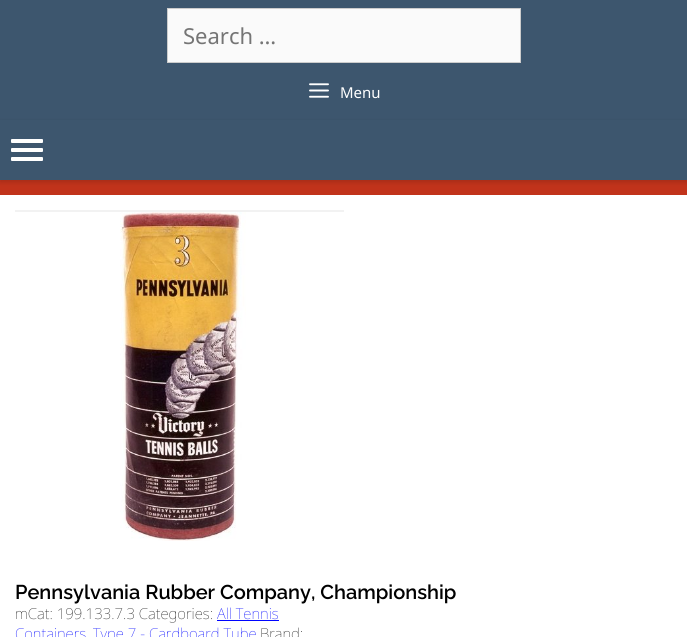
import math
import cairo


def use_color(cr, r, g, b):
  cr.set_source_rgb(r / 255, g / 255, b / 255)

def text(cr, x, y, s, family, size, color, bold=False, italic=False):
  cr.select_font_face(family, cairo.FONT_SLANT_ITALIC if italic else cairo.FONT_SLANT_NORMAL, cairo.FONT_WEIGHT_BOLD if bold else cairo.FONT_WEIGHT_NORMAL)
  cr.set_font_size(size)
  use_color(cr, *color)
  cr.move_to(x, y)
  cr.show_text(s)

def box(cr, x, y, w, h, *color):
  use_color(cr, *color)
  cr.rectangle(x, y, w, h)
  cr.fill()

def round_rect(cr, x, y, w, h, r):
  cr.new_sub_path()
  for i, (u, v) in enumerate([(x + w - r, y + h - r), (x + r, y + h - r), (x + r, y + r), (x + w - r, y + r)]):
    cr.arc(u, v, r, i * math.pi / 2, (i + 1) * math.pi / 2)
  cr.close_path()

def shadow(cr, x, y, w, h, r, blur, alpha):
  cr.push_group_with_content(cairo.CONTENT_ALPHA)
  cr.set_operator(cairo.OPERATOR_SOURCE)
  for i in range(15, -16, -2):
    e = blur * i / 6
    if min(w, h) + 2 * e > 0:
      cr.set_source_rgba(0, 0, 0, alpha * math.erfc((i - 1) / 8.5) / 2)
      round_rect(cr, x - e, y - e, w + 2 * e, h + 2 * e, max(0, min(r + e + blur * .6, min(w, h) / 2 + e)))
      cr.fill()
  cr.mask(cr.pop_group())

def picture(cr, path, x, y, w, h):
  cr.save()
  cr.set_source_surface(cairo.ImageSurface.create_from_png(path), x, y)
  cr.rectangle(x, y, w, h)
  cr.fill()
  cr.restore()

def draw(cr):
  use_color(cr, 255, 255, 255)
  cr.paint()
  box(cr, 0, 0, 687, 180, 61, 86, 110)
  use_color(cr, 250, 250, 250)
  cr.rectangle(167.5, 8.5, 353, 54)
  cr.fill_preserve()
  use_color(cr, 204, 204, 204)
  cr.set_line_width(1)
  cr.stroke()
  picture(cr, "img_01.png", 309, 83, 20, 15)
  box(cr, 0, 180, 687, 15, 193, 51, 27)
  cr.save()
  cr.set_fill_rule(cairo.FILL_RULE_EVEN_ODD)
  cr.new_path()
  cr.move_to(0, 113)
  cr.line_to(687, 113)
  cr.line_to(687, 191)
  cr.line_to(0, 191)
  cr.close_path()
  cr.move_to(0, 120)
  cr.line_to(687, 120)
  cr.line_to(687, 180)
  cr.line_to(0, 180)
  cr.close_path()
  cr.clip()
  use_color(cr, 0, 0, 0)
  shadow(cr, 0, 122, 687, 60, 0, 2.5, 0.15)
  cr.restore()
  use_color(cr, 255, 255, 255)
  round_rect(cr, 11, 139, 32, 4, 1)
  cr.fill()
  round_rect(cr, 11, 148, 32, 4, 1)
  cr.fill()
  round_rect(cr, 11, 157, 32, 4, 1)
  cr.fill()
  box(cr, 15, 210, 329, 2, 242, 242, 242)
  picture(cr, "img_02.png", 120, 212, 126, 329)
  box(cr, 217, 620, 62, 1, 0, 4, 255)
  text(cr, 183, 44, "Search …", "Noto Sans", 22, (117, 117, 117))
  text(cr, 340, 98, "Menu", "Noto Sans", 15, (255, 255, 255))
  text(cr, 15, 599, "Pennsylvania Rubber Company, Championship", "Raleway SemiBold", 20, (0, 0, 0))
  text(cr, 15, 619, "mCat: 199.133.7.3 Categories:", "Noto Sans Thin", 15, (17, 17, 17))
  text(cr, 217, 619, "All Tennis", "Noto Sans Thin", 15, (0, 4, 255))
  text(cr, 15, 639, "Containers", "Noto Sans Thin", 15, (0, 4, 255))
  text(cr, 93, 639, "Type 7 - Cardboard Tube", "Noto Sans Thin", 15, (0, 4, 255))
  text(cr, 260, 639, "Brand:", "Noto Sans Thin", 15, (17, 17, 17))


surface = cairo.ImageSurface(cairo.FORMAT_RGB24, 687, 637)
cr = cairo.Context(surface)
options = cairo.FontOptions()
options.set_hint_metrics(cairo.HINT_METRICS_OFF)
options.set_hint_style(cairo.HINT_STYLE_NONE)
cr.set_font_options(options)
cr.set_miter_limit(4)
draw(cr)
surface.write_to_png("out.png")
